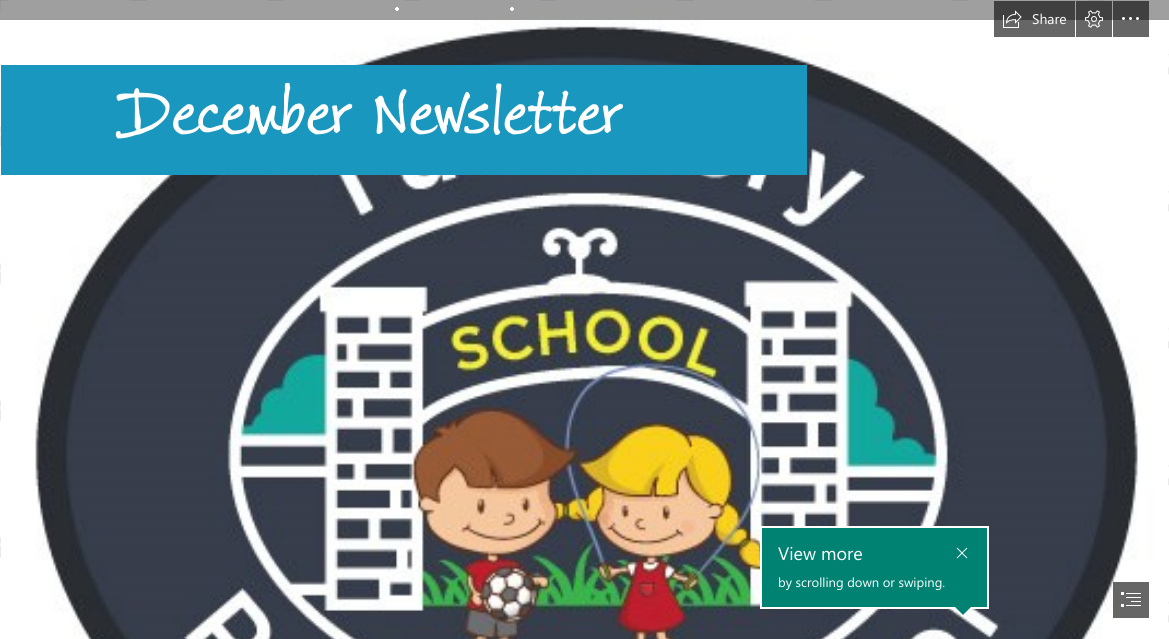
import math
import cairo


def use_color(cr, r, g, b):
  cr.set_source_rgb(r / 255, g / 255, b / 255)

def text(cr, x, y, s, family, size, color, bold=False, italic=False):
  cr.select_font_face(family, cairo.FONT_SLANT_ITALIC if italic else cairo.FONT_SLANT_NORMAL, cairo.FONT_WEIGHT_BOLD if bold else cairo.FONT_WEIGHT_NORMAL)
  cr.set_font_size(size)
  use_color(cr, *color)
  cr.move_to(x, y)
  cr.show_text(s)

def box(cr, x, y, w, h, *color):
  use_color(cr, *color)
  cr.rectangle(x, y, w, h)
  cr.fill()

def picture(cr, path, x, y, w, h):
  cr.save()
  cr.set_source_surface(cairo.ImageSurface.create_from_png(path), x, y)
  cr.rectangle(x, y, w, h)
  cr.fill()
  cr.restore()

def draw(cr):
  use_color(cr, 234, 234, 234)
  cr.paint()
  picture(cr, "img_05.png", 0, 0, 1169, 639)
  picture(cr, "img_06.png", 1, 1, 1167, 638)
  cr.set_source_rgba(0.251, 0.251, 0.251, 0.5)
  cr.rectangle(0, 0, 1169, 20)
  cr.fill()
  cr.set_source_rgba(0, 0, 0, 0.6)
  cr.rectangle(994, 1, 81, 36)
  cr.fill()
  picture(cr, "img_01.png", 1003, 10, 19, 18)
  cr.rectangle(1076, 1, 36, 36)
  cr.fill()
  picture(cr, "img_02.png", 1085, 10, 18, 18)
  cr.rectangle(1113, 1, 36, 36)
  cr.fill()
  picture(cr, "img_03.png", 1122, 17, 17, 3)
  picture(cr, "img_04.png", 395, 7, 119, 4)
  box(cr, 1, 65, 806, 110, 25, 151, 190)
  use_color(cr, 0, 130, 114)
  cr.rectangle(761, 527, 227, 81)
  cr.fill_preserve()
  use_color(cr, 255, 255, 255)
  cr.stroke()
  picture(cr, "img_07.png", 956, 547, 12, 12)
  cr.new_path()
  cr.move_to(953, 607)
  cr.line_to(973, 607)
  cr.line_to(963, 617)
  cr.close_path()
  cr.fill()
  use_color(cr, 0, 130, 114)
  cr.new_path()
  cr.move_to(955, 607)
  cr.line_to(971, 607)
  cr.line_to(963, 615)
  cr.close_path()
  cr.fill()
  cr.set_source_rgba(0, 0, 0, 0.6)
  cr.rectangle(1113, 582, 36, 36)
  cr.fill()
  picture(cr, "img_08.png", 1121, 592, 20, 15)
  text(cr, 1032, 24, "Share", "Segoe UI", 14, (255, 255, 255))
  text(cr, 118, 133, "December Newsletter", "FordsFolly", 68.5, (255, 255, 255))
  text(cr, 778, 560, "View more", "Segoe UI", 18, (255, 255, 255))
  text(cr, 778, 587, "by scrolling down or swiping.", "Segoe UI", 13, (255, 255, 255))


surface = cairo.ImageSurface(cairo.FORMAT_RGB24, 1169, 639)
cr = cairo.Context(surface)
options = cairo.FontOptions()
options.set_hint_metrics(cairo.HINT_METRICS_OFF)
options.set_hint_style(cairo.HINT_STYLE_NONE)
cr.set_font_options(options)
cr.set_miter_limit(4)
draw(cr)
surface.write_to_png("out.png")
